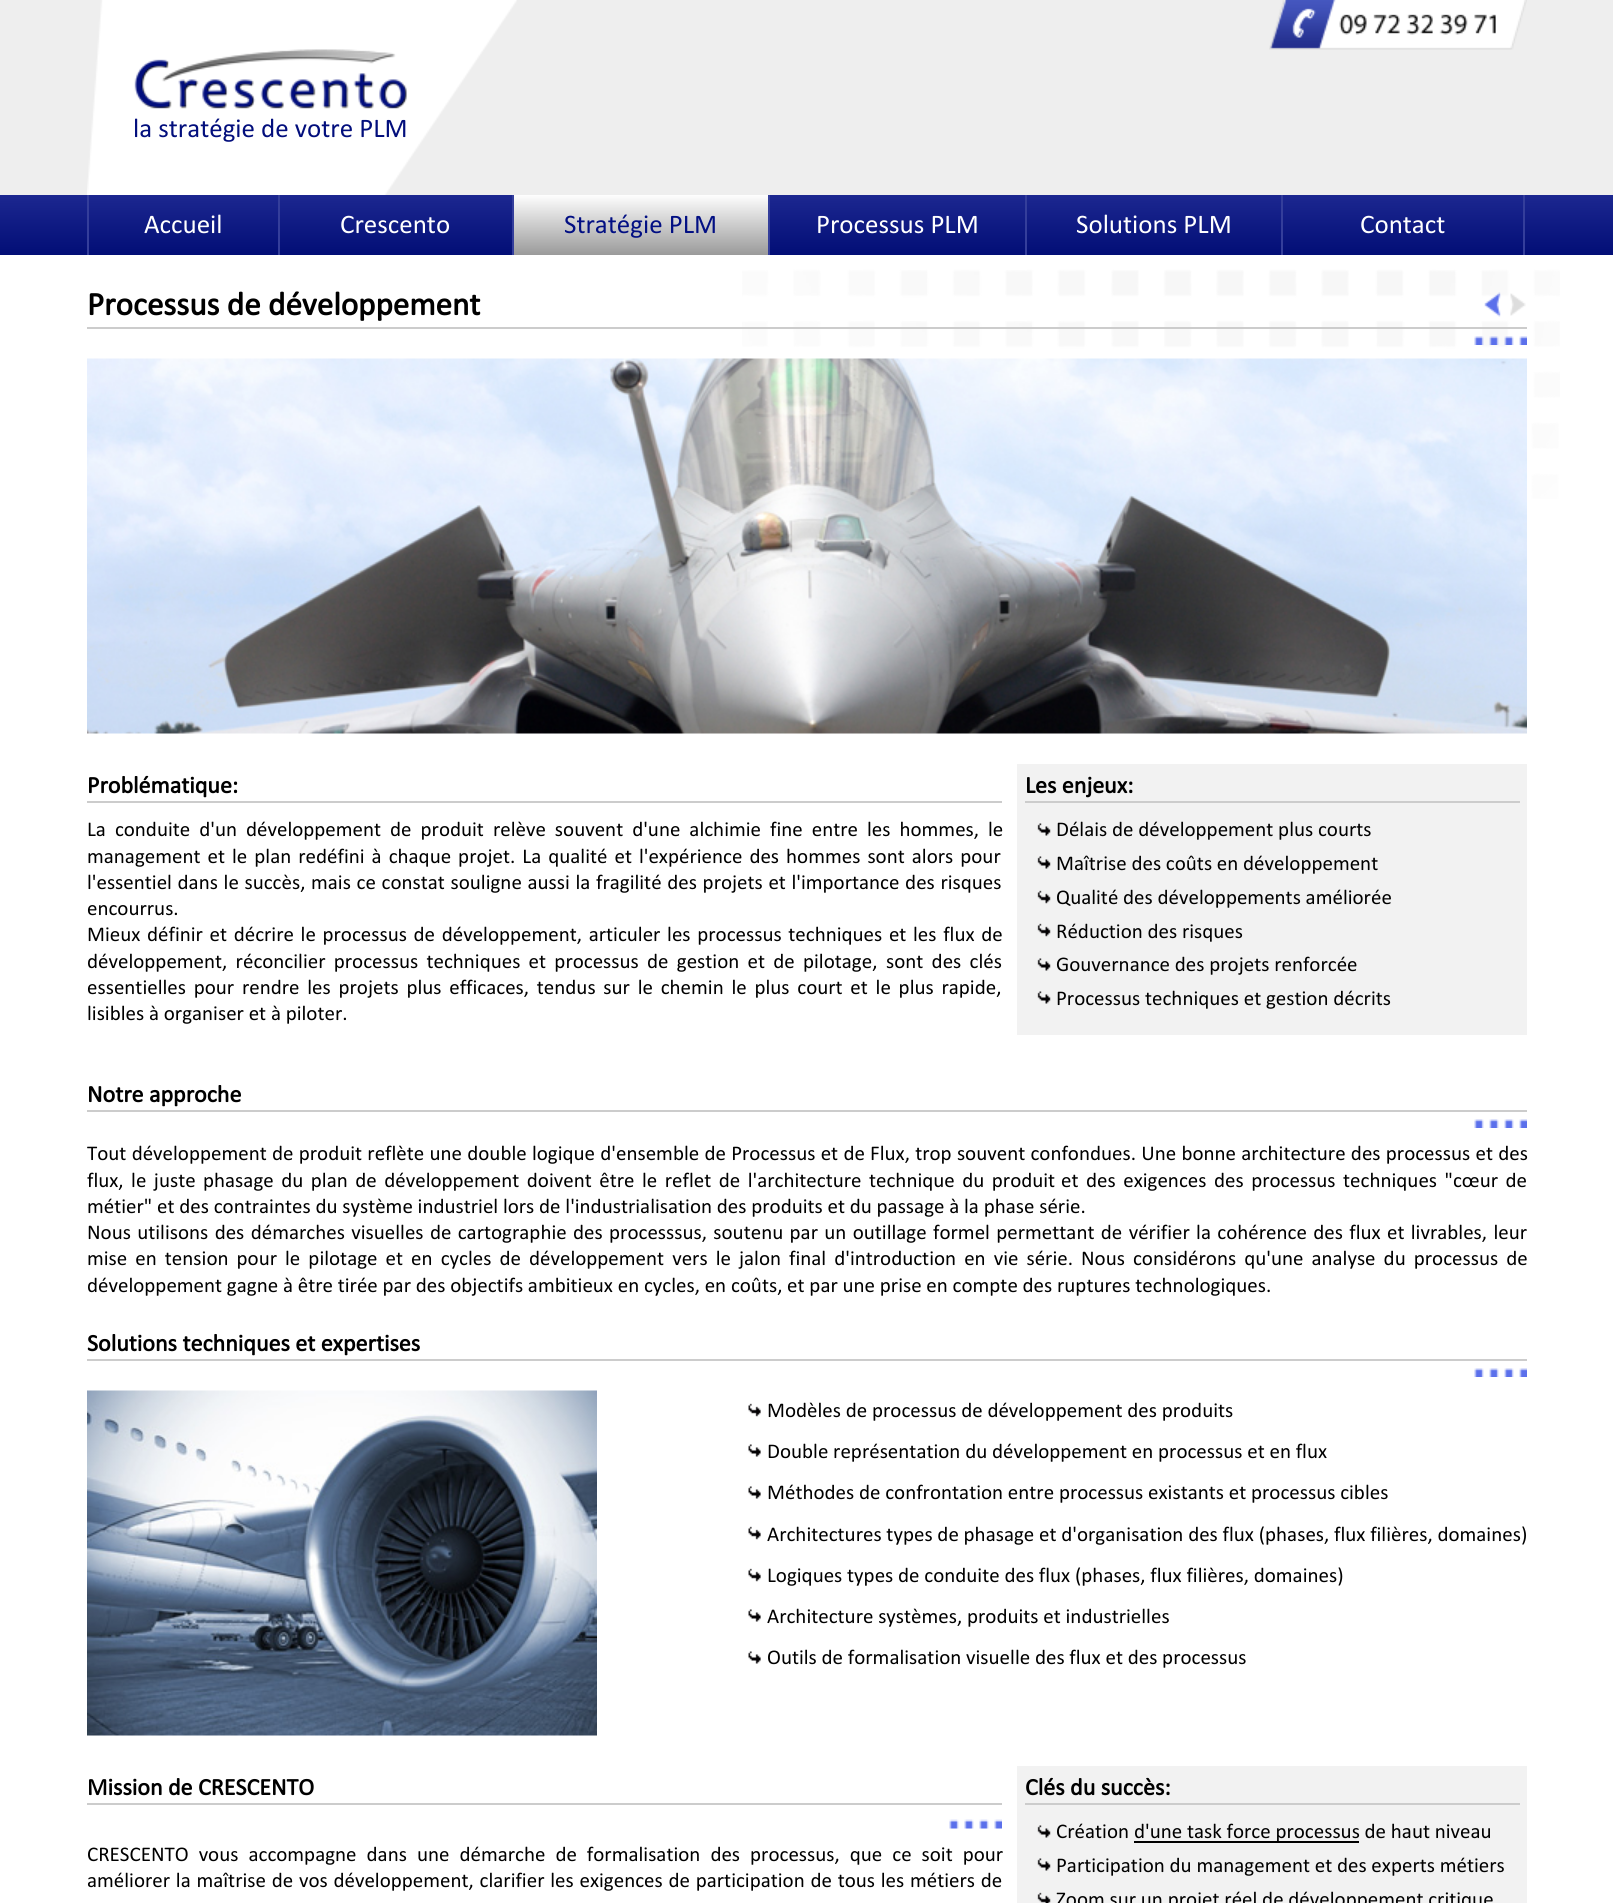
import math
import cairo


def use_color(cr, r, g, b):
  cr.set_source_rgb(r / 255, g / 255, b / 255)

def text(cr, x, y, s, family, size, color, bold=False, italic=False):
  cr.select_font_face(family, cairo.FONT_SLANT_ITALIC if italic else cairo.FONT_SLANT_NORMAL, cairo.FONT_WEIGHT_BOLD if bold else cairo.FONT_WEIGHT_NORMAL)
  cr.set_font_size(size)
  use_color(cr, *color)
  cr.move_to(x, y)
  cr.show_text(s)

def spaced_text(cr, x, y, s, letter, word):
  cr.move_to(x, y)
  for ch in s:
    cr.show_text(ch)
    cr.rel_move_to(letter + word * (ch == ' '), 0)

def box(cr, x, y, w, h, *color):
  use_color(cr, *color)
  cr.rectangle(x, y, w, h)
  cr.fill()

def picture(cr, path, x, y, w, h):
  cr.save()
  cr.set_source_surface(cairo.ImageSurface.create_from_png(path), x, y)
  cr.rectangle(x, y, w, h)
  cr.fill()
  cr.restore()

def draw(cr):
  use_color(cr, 255, 255, 255)
  cr.paint()
  picture(cr, "img_01.png", 742, 269, 818, 230)
  box(cr, 0, 0, 1613, 195, 238, 238, 238)
  picture(cr, "img_02.png", 87, 0, 430, 195)
  picture(cr, "img_03.png", 1269, 0, 258, 50)
  picture(cr, "img_04.png", 134, 49, 273, 60)
  gradient = cairo.LinearGradient(0, 195, 0, 255)
  gradient.add_color_stop_rgba(0, 0.11, 0.153, 0.565, 1)
  gradient.add_color_stop_rgba(1, 0.008, 0.055, 0.463, 1)
  cr.set_source(gradient)
  cr.rectangle(0, 195, 1613, 60)
  cr.fill()
  box(cr, 87, 195, 2, 60, 52, 62, 155)
  box(cr, 278, 195, 2, 60, 52, 62, 155)
  gradient = cairo.LinearGradient(513, 195, 513, 255)
  gradient.add_color_stop_rgba(0, 0.996, 0.996, 0.996, 1)
  gradient.add_color_stop_rgba(1, 0.604, 0.604, 0.604, 1)
  cr.set_source(gradient)
  cr.rectangle(514, 195, 254, 60)
  cr.fill()
  box(cr, 512, 195, 2, 60, 52, 62, 155)
  box(cr, 768, 195, 2, 60, 52, 62, 155)
  box(cr, 1025, 195, 2, 60, 52, 62, 155)
  box(cr, 1523, 195, 2, 60, 52, 62, 155)
  box(cr, 1281, 195, 2, 60, 52, 62, 155)
  box(cr, 87, 327, 1440, 2, 204, 204, 204)
  picture(cr, "img_05.png", 1484, 292, 17, 25)
  picture(cr, "img_06.png", 1510, 293, 16, 23)
  picture(cr, "img_07.png", 1474, 336, 53, 9)
  picture(cr, "img_08.png", 87, 358, 1440, 376)
  box(cr, 87, 801, 915, 2, 204, 204, 204)
  box(cr, 1017, 764, 510, 271, 242, 242, 242)
  box(cr, 1025, 801, 495, 2, 204, 204, 204)
  picture(cr, "img_09.png", 1037, 823, 14, 13)
  picture(cr, "img_09.png", 1037, 856, 14, 13)
  picture(cr, "img_10.png", 1037, 890, 14, 14)
  picture(cr, "img_10.png", 1037, 923, 14, 14)
  picture(cr, "img_09.png", 1037, 958, 14, 13)
  picture(cr, "img_09.png", 1037, 991, 14, 13)
  box(cr, 87, 1110, 1440, 2, 204, 204, 204)
  picture(cr, "img_11.png", 1474, 1119, 53, 9)
  box(cr, 87, 1359, 1440, 2, 204, 204, 204)
  picture(cr, "img_11.png", 1474, 1368, 53, 9)
  picture(cr, "img_12.png", 87, 1390, 510, 346)
  picture(cr, "img_13.png", 748, 1403, 13, 14)
  picture(cr, "img_14.png", 748, 1444, 13, 13)
  picture(cr, "img_14.png", 748, 1486, 13, 13)
  picture(cr, "img_13.png", 748, 1526, 13, 14)
  picture(cr, "img_13.png", 748, 1568, 13, 14)
  picture(cr, "img_14.png", 748, 1609, 13, 13)
  picture(cr, "img_14.png", 748, 1651, 13, 13)
  box(cr, 87, 1803, 915, 2, 204, 204, 204)
  picture(cr, "img_15.png", 949, 1819, 53, 10)
  box(cr, 1017, 1766, 510, 137, 242, 242, 242)
  box(cr, 1025, 1803, 495, 2, 204, 204, 204)
  picture(cr, "img_09.png", 1037, 1825, 14, 13)
  box(cr, 1134, 1841, 225, 2, 0, 0, 0)
  picture(cr, "img_09.png", 1037, 1858, 14, 13)
  picture(cr, "img_16.png", 1037, 1892, 14, 11)
  text(cr, 133, 137, "la stratégie de votre PLM", "Calibri", 27, (2, 14, 124))
  text(cr, 144, 233, "Accueil", "Calibri", 27, (255, 255, 255))
  text(cr, 340, 233, "Crescento", "Calibri", 27, (255, 255, 255))
  text(cr, 564, 233, "Stratégie PLM", "Calibri", 27, (2, 15, 131))
  text(cr, 816, 233, "Processus PLM", "Calibri", 27, (255, 255, 255))
  text(cr, 1076, 233, "Solutions PLM", "Calibri", 27, (255, 255, 255))
  text(cr, 1360, 233, "Contact", "Calibri", 27, (255, 255, 255))
  text(cr, 87, 315, "Processus de développement", "Calibri", 33, (0, 0, 0), bold=True)
  text(cr, 87, 793, "Problématique:", "Calibri", 24, (0, 0, 0), bold=True)
  cr.select_font_face("Calibri")
  cr.set_font_size(21)
  spaced_text(cr, 87, 836, "La conduite d'un développement de produit relève souvent d'une alchimie fine entre les hommes, le", 0, 4.25)
  spaced_text(cr, 87, 863, "management et le plan redéfini à chaque projet. La qualité et l'expérience des hommes sont alors pour", 0, 2.25)
  spaced_text(cr, 87, 889, "l'essentiel dans le succès, mais ce constat souligne aussi la fragilité des projets et l'importance des risques", 0, 0.9)
  text(cr, 87, 915, "encourrus.", "Calibri", 21, (0, 0, 0))
  spaced_text(cr, 87, 941, "Mieux définir et décrire le processus de développement, articuler les processus techniques et les flux de", 0, 1.9)
  spaced_text(cr, 87, 968, "développement, réconcilier processus techniques et processus de gestion et de pilotage,", 0, 3.5)
  spaced_text(cr, 886, 968, "sont des clés", 0, 3.5)
  spaced_text(cr, 87, 994, "essentielles pour rendre les projets plus efficaces, tendus sur le chemin le plus court et le plus rapide,", 0, 3)
  text(cr, 87, 1020, "lisibles à organiser et à piloter.", "Calibri", 21, (0, 0, 0))
  text(cr, 1025, 793, "Les enjeux:", "Calibri", 24, (0, 0, 0), bold=True)
  text(cr, 1056, 836, "Délais de développement plus courts", "Calibri", 21, (0, 0, 0))
  text(cr, 1056, 870, "Maîtrise des coûts en développement", "Calibri", 21, (0, 0, 0))
  text(cr, 1056, 904, "Qualité des développements améliorée", "Calibri", 21, (0, 0, 0))
  text(cr, 1056, 938, "Réduction des risques", "Calibri", 21, (0, 0, 0))
  text(cr, 1056, 971, "Gouvernance des projets renforcée", "Calibri", 21, (0, 0, 0))
  text(cr, 1056, 1005, "Processus techniques et gestion décrits", "Calibri", 21, (0, 0, 0))
  text(cr, 87, 1102, "Notre approche", "Calibri", 24, (0, 0, 0), bold=True)
  cr.select_font_face("Calibri")
  cr.set_font_size(21)
  spaced_text(cr, 87, 1160, "Tout développement de produit reflète une double logique d'ensemble de Processus et de Flux, trop souvent confondues. Une bonne architecture des processus et des", 0, 0.5)
  spaced_text(cr, 87, 1187, "flux, le juste", 0, 2.75)
  spaced_text(cr, 203, 1187, "phasage du plan de développement doivent être le reflet de l'architecture technique du produit", 0, 2.75)
  spaced_text(cr, 1061, 1187, "et des exigences des processus techniques \"cœur de", 0, 2.75)
  text(cr, 87, 1213, "métier\" et des contraintes du système industriel lors de l'industrialisation des produits et du passage à la phase série.", "Calibri", 21, (0, 0, 0))
  spaced_text(cr, 87, 1239, "Nous utilisons des démarches visuelles de cartographie des processsus, soutenu par un outillage formel permettant de vérifier la cohérence des flux et livrables, leur", 0, 1.6)
  spaced_text(cr, 87, 1265, "mise en tension pour le pilotage et en cycles de développement vers le jalon final d'introduction en vie série. Nous considérons qu'une analyse du processus de", 0, 3.3)
  text(cr, 87, 1292, "développement gagne à être tirée par des objectifs ambitieux en cycles, en coûts, et par une prise en compte des ruptures technologiques.", "Calibri", 21, (0, 0, 0))
  text(cr, 87, 1351, "Solutions techniques et expertises", "Calibri", 24, (0, 0, 0), bold=True)
  text(cr, 767, 1417, "Modèles de processus de développement des produits", "Calibri", 21, (0, 0, 0))
  text(cr, 767, 1458, "Double représentation du développement en processus et en flux", "Calibri", 21, (0, 0, 0))
  text(cr, 767, 1499, "Méthodes de confrontation entre processus existants et processus cibles", "Calibri", 21, (0, 0, 0))
  text(cr, 767, 1541, "Architectures types de phasage et d'organisation des flux (phases, flux filières, domaines)", "Calibri", 21, (0, 0, 0))
  text(cr, 767, 1582, "Logiques types de conduite des flux (phases, flux filières, domaines)", "Calibri", 21, (0, 0, 0))
  text(cr, 767, 1623, "Architecture systèmes, produits et industrielles", "Calibri", 21, (0, 0, 0))
  text(cr, 767, 1664, "Outils de formalisation visuelle des flux et des processus", "Calibri", 21, (0, 0, 0))
  text(cr, 87, 1795, "Mission de CRESCENTO", "Calibri", 24, (0, 0, 0), bold=True)
  cr.select_font_face("Calibri")
  cr.set_font_size(21)
  spaced_text(cr, 87, 1861, "CRESCENTO vous accompagne dans une démarche de formalisation des processus, que ce soit pour", 0, 5.25)
  spaced_text(cr, 87, 1887, "améliorer la maîtrise de vos développement, clarifier les exigences de participation de tous les métiers de", 0, 1)
  text(cr, 1025, 1795, "Clés du succès:", "Calibri", 24, (0, 0, 0), bold=True)
  text(cr, 1056, 1838, "Création", "Calibri", 21, (0, 0, 0))
  text(cr, 1134, 1838, "d'une task force processus de haut niveau", "Calibri", 21, (0, 0, 0))
  text(cr, 1056, 1872, "Participation du management et des experts métiers", "Calibri", 21, (0, 0, 0))
  text(cr, 1056, 1906, "Zoom sur un projet réel de développement critique", "Calibri", 21, (0, 0, 0))


surface = cairo.ImageSurface(cairo.FORMAT_RGB24, 1613, 1903)
cr = cairo.Context(surface)
options = cairo.FontOptions()
options.set_hint_metrics(cairo.HINT_METRICS_OFF)
options.set_hint_style(cairo.HINT_STYLE_NONE)
cr.set_font_options(options)
cr.set_miter_limit(4)
draw(cr)
surface.write_to_png("out.png")
